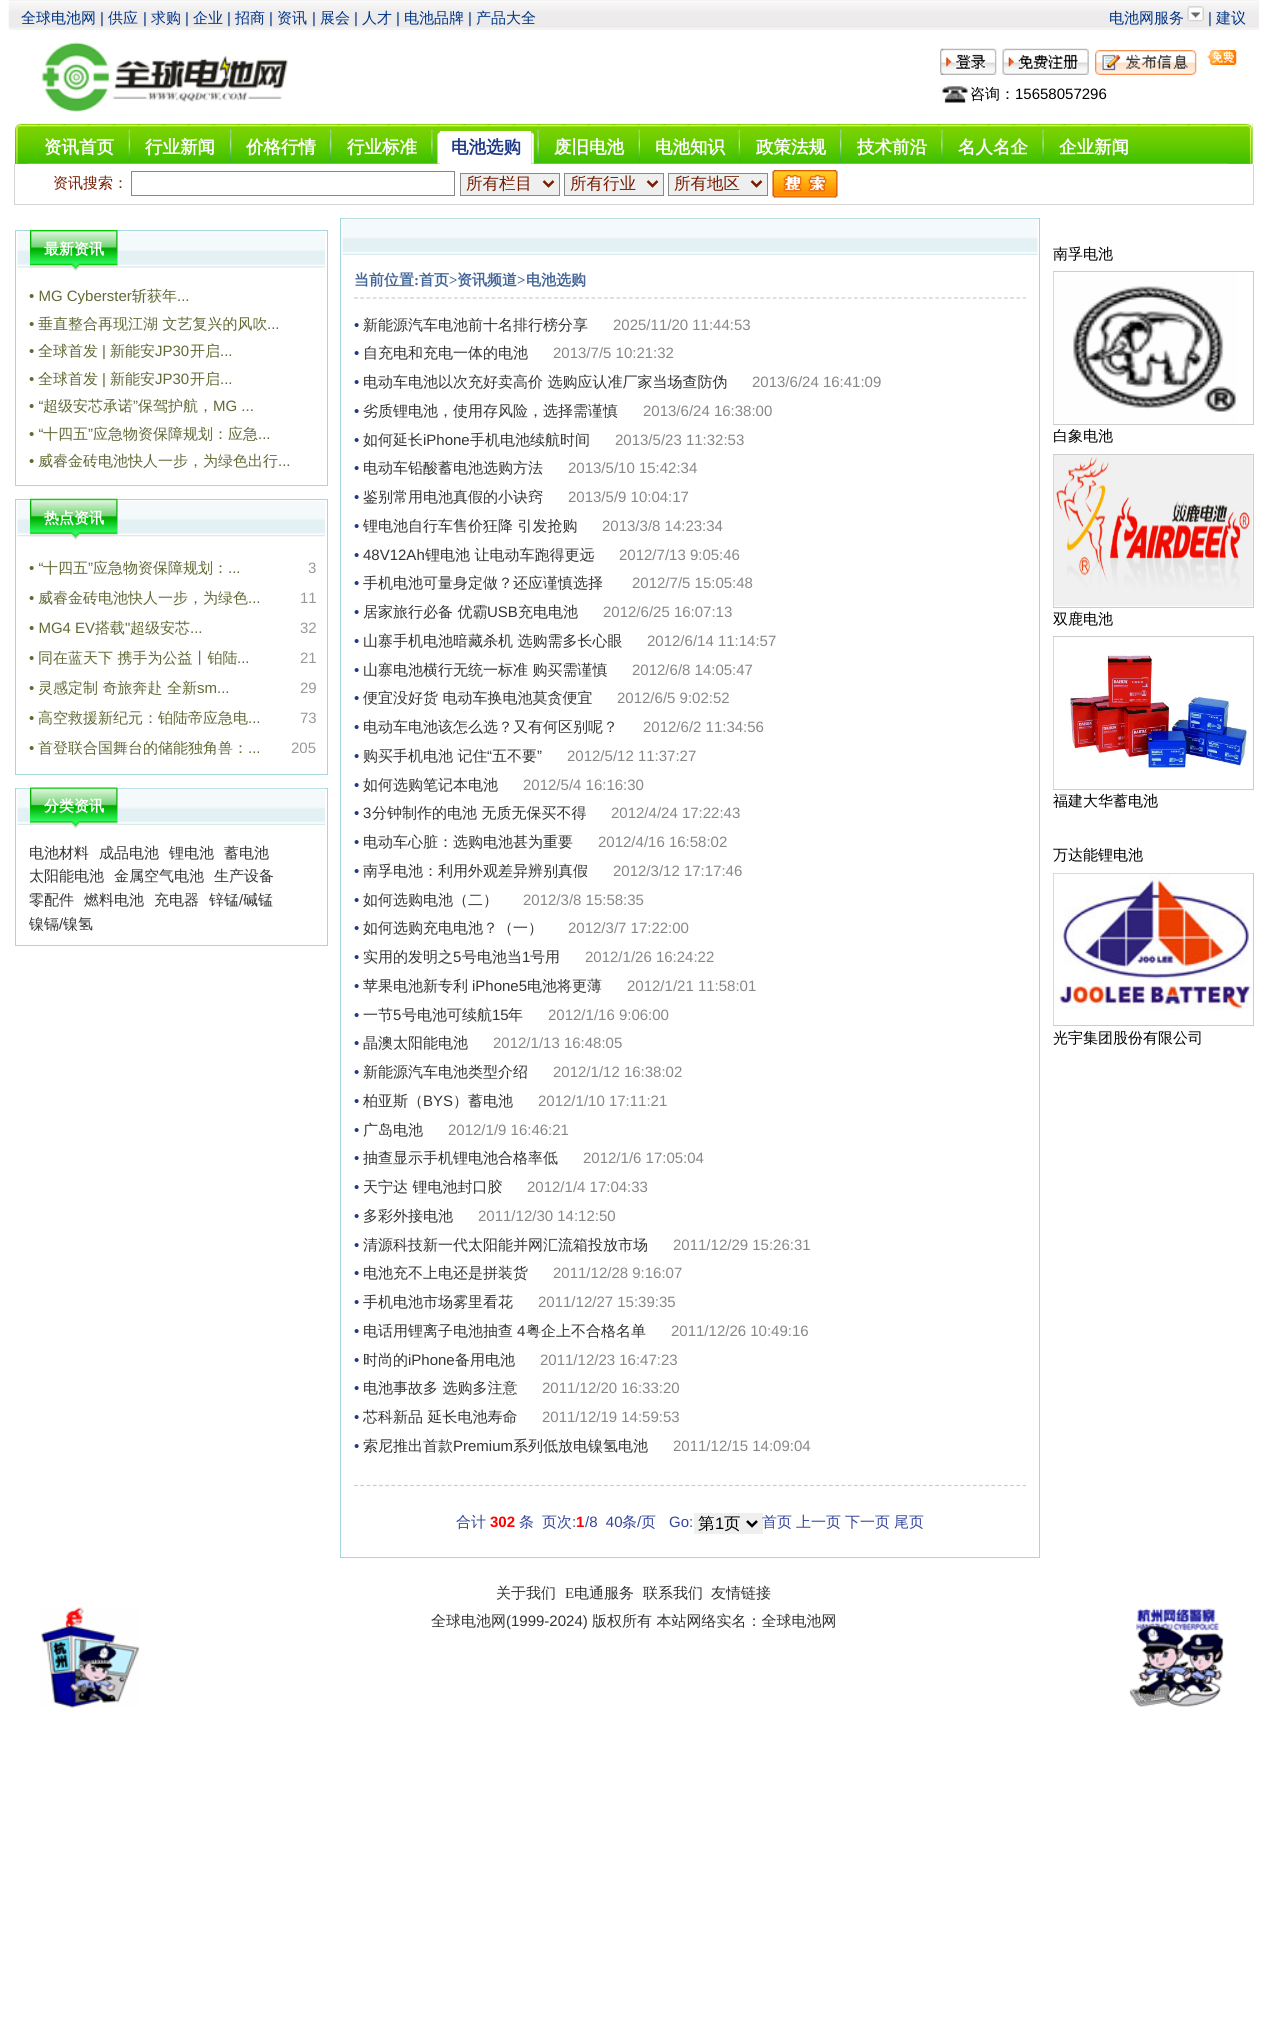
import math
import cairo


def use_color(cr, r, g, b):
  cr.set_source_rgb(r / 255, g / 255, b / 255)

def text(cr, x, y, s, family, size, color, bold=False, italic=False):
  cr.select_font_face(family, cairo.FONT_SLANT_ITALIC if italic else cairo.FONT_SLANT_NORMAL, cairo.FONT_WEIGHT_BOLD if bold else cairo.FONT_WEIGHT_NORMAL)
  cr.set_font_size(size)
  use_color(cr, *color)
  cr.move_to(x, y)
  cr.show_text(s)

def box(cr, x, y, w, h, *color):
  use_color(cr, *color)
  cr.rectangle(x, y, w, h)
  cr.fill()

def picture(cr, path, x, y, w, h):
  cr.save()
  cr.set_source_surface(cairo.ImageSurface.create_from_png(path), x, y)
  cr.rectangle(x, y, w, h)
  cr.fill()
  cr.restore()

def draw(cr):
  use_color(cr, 255, 255, 255)
  cr.paint()
  box(cr, 9, 0, 1250, 30, 244, 244, 244)
  picture(cr, "img_01.png", 8, 1, 1251, 27)
  picture(cr, "img_02.png", 1187, 6, 17, 16)
  picture(cr, "img_03.png", 41, 42, 247, 70)
  picture(cr, "img_04.png", 940, 48, 57, 27)
  picture(cr, "img_05.png", 1002, 48, 87, 27)
  picture(cr, "img_06.png", 1095, 50, 102, 25)
  picture(cr, "img_07.png", 1207, 50, 30, 15)
  picture(cr, "img_08.png", 940, 85, 30, 19)
  picture(cr, "img_09.png", 15, 123, 1238, 41)
  picture(cr, "img_10.png", 15, 123, 13, 41)
  picture(cr, "img_11.png", 128, 130, 2, 33)
  picture(cr, "img_12.png", 230, 130, 2, 33)
  picture(cr, "img_12.png", 330, 130, 2, 33)
  picture(cr, "img_13.png", 431, 130, 2, 33)
  picture(cr, "img_14.png", 537, 130, 2, 33)
  picture(cr, "img_15.png", 437, 132, 3, 32)
  box(cr, 440, 131, 91, 33, 255, 255, 255)
  picture(cr, "img_16.png", 531, 132, 3, 32)
  picture(cr, "img_11.png", 638, 130, 2, 33)
  picture(cr, "img_11.png", 738, 130, 2, 33)
  picture(cr, "img_12.png", 840, 130, 2, 33)
  picture(cr, "img_13.png", 941, 130, 2, 33)
  picture(cr, "img_14.png", 1042, 130, 2, 33)
  picture(cr, "img_17.png", 1227, 123, 26, 41)
  box(cr, 1253, 164, 1, 41, 214, 213, 213)
  box(cr, 14, 204, 1240, 1, 214, 213, 213)
  box(cr, 14, 164, 1, 41, 214, 213, 213)
  cr.rectangle(131.5, 171.5, 323, 24)
  use_color(cr, 136, 136, 136)
  cr.set_line_width(1)
  cr.stroke()
  use_color(cr, 239, 239, 239)
  cr.rectangle(460.5, 173.5, 99, 22)
  cr.fill_preserve()
  use_color(cr, 136, 136, 136)
  cr.stroke()
  cr.new_path()
  cr.move_to(543.5, 181)
  cr.line_to(548.5, 186)
  cr.line_to(553.5, 181)
  use_color(cr, 117, 27, 0)
  cr.set_line_width(2.5)
  cr.stroke()
  use_color(cr, 239, 239, 239)
  cr.rectangle(564.5, 173.5, 99, 22)
  cr.fill_preserve()
  use_color(cr, 136, 136, 136)
  cr.set_line_width(1)
  cr.stroke()
  cr.new_path()
  cr.move_to(647.5, 181)
  cr.line_to(652.5, 186)
  cr.line_to(657.5, 181)
  use_color(cr, 117, 27, 0)
  cr.set_line_width(2.5)
  cr.stroke()
  use_color(cr, 239, 239, 239)
  cr.rectangle(668.5, 173.5, 99, 22)
  cr.fill_preserve()
  use_color(cr, 136, 136, 136)
  cr.set_line_width(1)
  cr.stroke()
  cr.new_path()
  cr.move_to(751.5, 181)
  cr.line_to(756.5, 186)
  cr.line_to(761.5, 181)
  use_color(cr, 117, 27, 0)
  cr.set_line_width(2.5)
  cr.stroke()
  picture(cr, "img_18.png", 772, 170, 66, 28)
  cr.rectangle(15.5, 230.5, 312, 255)
  use_color(cr, 165, 215, 220)
  cr.set_line_width(1)
  cr.stroke()
  picture(cr, "img_19.png", 17, 232, 308, 36)
  picture(cr, "img_20.png", 30, 230, 88, 42)
  cr.rectangle(15.5, 499.5, 312, 275)
  cr.stroke()
  picture(cr, "img_21.png", 17, 501, 308, 36)
  picture(cr, "img_22.png", 30, 498, 88, 42)
  cr.rectangle(15.5, 788.5, 312, 157)
  cr.stroke()
  picture(cr, "img_23.png", 17, 788, 308, 37)
  picture(cr, "img_24.png", 30, 787, 88, 42)
  cr.rectangle(340.5, 218.5, 699, 1339)
  cr.stroke()
  picture(cr, "img_25.png", 342, 218, 696, 37)
  cr.new_path()
  cr.move_to(354, 298)
  cr.line_to(1026, 298)
  use_color(cr, 204, 204, 204)
  cr.set_line_width(1.2)
  cr.set_dash([3.75, 2.5])
  cr.stroke()
  cr.new_path()
  cr.move_to(354, 1485.5)
  cr.line_to(1026, 1485.5)
  cr.stroke()
  box(cr, 694, 1513, 69, 21, 239, 239, 239)
  cr.new_path()
  cr.move_to(747, 1521)
  cr.line_to(752, 1526)
  cr.line_to(757, 1521)
  use_color(cr, 0, 0, 0)
  cr.set_line_width(2.5)
  cr.set_dash([])
  cr.stroke()
  cr.rectangle(1053.5, 271.5, 200, 153)
  use_color(cr, 204, 204, 204)
  cr.set_line_width(1)
  cr.stroke()
  picture(cr, "img_26.png", 1053, 272, 185, 152)
  cr.rectangle(1053.5, 454.5, 200, 153)
  cr.stroke()
  picture(cr, "img_27.png", 1053, 455, 200, 152)
  cr.rectangle(1053.5, 636.5, 200, 153)
  cr.stroke()
  picture(cr, "img_28.png", 1053, 637, 195, 152)
  cr.rectangle(1053.5, 873.5, 200, 152)
  cr.stroke()
  picture(cr, "img_29.png", 1053, 873, 200, 152)
  picture(cr, "img_30.png", 41, 1607, 99, 101)
  picture(cr, "img_31.png", 1129, 1608, 95, 100)
  text(cr, 21, 23, "全球电池网", "WenQuanYi Zen Hei Medium", 15, (0, 53, 134))
  text(cr, 100, 23, "|", "Liberation Sans", 15, (0, 53, 134))
  text(cr, 108, 23, "供应", "WenQuanYi Zen Hei Medium", 15, (0, 53, 134))
  text(cr, 143, 23, "|", "Liberation Sans", 15, (0, 53, 134))
  text(cr, 151, 23, "求购", "WenQuanYi Zen Hei Medium", 15, (0, 53, 134))
  text(cr, 185, 23, "|", "Liberation Sans", 15, (0, 53, 134))
  text(cr, 193, 23, "企业", "WenQuanYi Zen Hei Medium", 15, (0, 53, 134))
  text(cr, 227, 23, "|", "Liberation Sans", 15, (0, 53, 134))
  text(cr, 235, 23, "招商", "WenQuanYi Zen Hei Medium", 15, (0, 53, 134))
  text(cr, 269, 23, "|", "Liberation Sans", 15, (0, 53, 134))
  text(cr, 277, 23, "资讯", "WenQuanYi Zen Hei Medium", 15, (0, 53, 134))
  text(cr, 312, 23, "|", "Liberation Sans", 15, (0, 53, 134))
  text(cr, 320, 23, "展会", "WenQuanYi Zen Hei Medium", 15, (0, 53, 134))
  text(cr, 354, 23, "|", "Liberation Sans", 15, (0, 53, 134))
  text(cr, 362, 23, "人才", "WenQuanYi Zen Hei Medium", 15, (0, 53, 134))
  text(cr, 396, 23, "|", "Liberation Sans", 15, (0, 53, 134))
  text(cr, 404, 23, "电池品牌", "WenQuanYi Zen Hei Medium", 15, (0, 53, 134))
  text(cr, 468, 23, "|", "Liberation Sans", 15, (0, 53, 134))
  text(cr, 476, 23, "产品大全", "WenQuanYi Zen Hei Medium", 15, (0, 53, 134))
  text(cr, 1109, 23, "电池网服务", "WenQuanYi Zen Hei Medium", 15, (0, 53, 134))
  text(cr, 1208, 23, "|", "Liberation Sans", 15, (0, 53, 134))
  text(cr, 1216, 23, "建议", "WenQuanYi Zen Hei Medium", 15, (0, 53, 134))
  text(cr, 970, 99, "咨询：", "WenQuanYi Zen Hei Medium", 15, (0, 0, 0))
  text(cr, 1015, 99, "15658057296", "Liberation Sans", 15, (0, 0, 0))
  text(cr, 44, 153, "资讯首页", "WenQuanYi Zen Hei", 17.5, (255, 255, 255), bold=True)
  text(cr, 145, 153, "行业新闻", "WenQuanYi Zen Hei", 17.5, (255, 255, 255), bold=True)
  text(cr, 246, 153, "价格行情", "WenQuanYi Zen Hei", 17.5, (255, 255, 255), bold=True)
  text(cr, 347, 153, "行业标准", "WenQuanYi Zen Hei", 17.5, (255, 255, 255), bold=True)
  text(cr, 451, 153, "电池选购", "WenQuanYi Zen Hei", 17.5, (31, 58, 135), bold=True)
  text(cr, 554, 153, "废旧电池", "WenQuanYi Zen Hei", 17.5, (255, 255, 255), bold=True)
  text(cr, 655, 153, "电池知识", "WenQuanYi Zen Hei", 17.5, (255, 255, 255), bold=True)
  text(cr, 756, 153, "政策法规", "WenQuanYi Zen Hei", 17.5, (255, 255, 255), bold=True)
  text(cr, 857, 153, "技术前沿", "WenQuanYi Zen Hei", 17.5, (255, 255, 255), bold=True)
  text(cr, 958, 153, "名人名企", "WenQuanYi Zen Hei", 17.5, (255, 255, 255), bold=True)
  text(cr, 1059, 153, "企业新闻", "WenQuanYi Zen Hei", 17.5, (255, 255, 255), bold=True)
  text(cr, 53, 188, "资讯搜索：", "WenQuanYi Zen Hei Medium", 15, (117, 27, 0))
  text(cr, 466, 189, "所有栏目", "WenQuanYi Zen Hei Medium", 16.5, (117, 27, 0))
  text(cr, 570, 189, "所有行业", "WenQuanYi Zen Hei Medium", 16.5, (117, 27, 0))
  text(cr, 674, 189, "所有地区", "WenQuanYi Zen Hei Medium", 16.5, (117, 27, 0))
  text(cr, 44, 254, "最新资讯", "WenQuanYi Zen Hei", 15, (255, 255, 255), bold=True)
  text(cr, 29, 301, "• MG Cyberster", "Liberation Sans", 15, (98, 105, 53))
  text(cr, 132, 301, "斩获年", "WenQuanYi Zen Hei Medium", 15, (98, 105, 53))
  text(cr, 177, 301, "...", "Liberation Sans", 15, (98, 105, 53))
  text(cr, 29, 329, "•", "Liberation Sans", 15, (98, 105, 53))
  text(cr, 38, 329, "垂直整合再现江湖 文艺复兴的风吹", "WenQuanYi Zen Hei Medium", 15, (98, 105, 53))
  text(cr, 267, 329, "...", "Liberation Sans", 15, (98, 105, 53))
  text(cr, 29, 356, "•", "Liberation Sans", 15, (98, 105, 53))
  text(cr, 38, 356, "全球首发", "WenQuanYi Zen Hei Medium", 15, (98, 105, 53))
  text(cr, 102, 356, "|", "Liberation Sans", 15, (98, 105, 53))
  text(cr, 110, 356, "新能安", "WenQuanYi Zen Hei Medium", 15, (98, 105, 53))
  text(cr, 155, 356, "JP30", "Liberation Sans", 15, (98, 105, 53))
  text(cr, 190, 356, "开启", "WenQuanYi Zen Hei Medium", 15, (98, 105, 53))
  text(cr, 220, 356, "...", "Liberation Sans", 15, (98, 105, 53))
  text(cr, 29, 384, "•", "Liberation Sans", 15, (98, 105, 53))
  text(cr, 38, 384, "全球首发", "WenQuanYi Zen Hei Medium", 15, (98, 105, 53))
  text(cr, 102, 384, "|", "Liberation Sans", 15, (98, 105, 53))
  text(cr, 110, 384, "新能安", "WenQuanYi Zen Hei Medium", 15, (98, 105, 53))
  text(cr, 155, 384, "JP30", "Liberation Sans", 15, (98, 105, 53))
  text(cr, 190, 384, "开启", "WenQuanYi Zen Hei Medium", 15, (98, 105, 53))
  text(cr, 220, 384, "...", "Liberation Sans", 15, (98, 105, 53))
  text(cr, 29, 411, "• “", "Liberation Sans", 15, (98, 105, 53))
  text(cr, 43, 411, "超级安芯承诺", "WenQuanYi Zen Hei Medium", 15, (98, 105, 53))
  text(cr, 133, 411, "”", "Liberation Sans", 15, (98, 105, 53))
  text(cr, 138, 411, "保驾护航，", "WenQuanYi Zen Hei Medium", 15, (98, 105, 53))
  text(cr, 213, 411, "MG ...", "Liberation Sans", 15, (98, 105, 53))
  text(cr, 29, 439, "• “", "Liberation Sans", 15, (98, 105, 53))
  text(cr, 43, 439, "十四五", "WenQuanYi Zen Hei Medium", 15, (98, 105, 53))
  text(cr, 88, 439, "”", "Liberation Sans", 15, (98, 105, 53))
  text(cr, 93, 439, "应急物资保障规划：应急", "WenQuanYi Zen Hei Medium", 15, (98, 105, 53))
  text(cr, 258, 439, "...", "Liberation Sans", 15, (98, 105, 53))
  text(cr, 29, 466, "•", "Liberation Sans", 15, (98, 105, 53))
  text(cr, 38, 466, "威睿金砖电池快人一步，为绿色出行", "WenQuanYi Zen Hei Medium", 15, (98, 105, 53))
  text(cr, 278, 466, "...", "Liberation Sans", 15, (98, 105, 53))
  text(cr, 44, 523, "热点资讯", "WenQuanYi Zen Hei", 15, (255, 255, 255), bold=True)
  text(cr, 29, 573, "• “", "Liberation Sans", 15, (98, 105, 53))
  text(cr, 43, 573, "十四五", "WenQuanYi Zen Hei Medium", 15, (98, 105, 53))
  text(cr, 88, 573, "”", "Liberation Sans", 15, (98, 105, 53))
  text(cr, 93, 573, "应急物资保障规划：", "WenQuanYi Zen Hei Medium", 15, (98, 105, 53))
  text(cr, 228, 573, "...", "Liberation Sans", 15, (98, 105, 53))
  text(cr, 308, 573, "3", "Liberation Sans", 15, (153, 153, 153))
  text(cr, 29, 603, "•", "Liberation Sans", 15, (98, 105, 53))
  text(cr, 38, 603, "威睿金砖电池快人一步，为绿色", "WenQuanYi Zen Hei Medium", 15, (98, 105, 53))
  text(cr, 300, 603, "11", "Liberation Sans", 15, (153, 153, 153))
  text(cr, 248, 603, "...", "Liberation Sans", 15, (98, 105, 53))
  text(cr, 29, 633, "• MG4 EV", "Liberation Sans", 15, (98, 105, 53))
  text(cr, 95, 633, "搭载", "WenQuanYi Zen Hei Medium", 15, (98, 105, 53))
  text(cr, 125, 633, "\"", "Liberation Sans", 15, (98, 105, 53))
  text(cr, 130, 633, "超级安芯", "WenQuanYi Zen Hei Medium", 15, (98, 105, 53))
  text(cr, 190, 633, "...", "Liberation Sans", 15, (98, 105, 53))
  text(cr, 300, 633, "32", "Liberation Sans", 15, (153, 153, 153))
  text(cr, 29, 663, "•", "Liberation Sans", 15, (98, 105, 53))
  text(cr, 38, 663, "同在蓝天下 携手为公益丨铂陆", "WenQuanYi Zen Hei Medium", 15, (98, 105, 53))
  text(cr, 300, 663, "21", "Liberation Sans", 15, (153, 153, 153))
  text(cr, 237, 663, "...", "Liberation Sans", 15, (98, 105, 53))
  text(cr, 29, 693, "•", "Liberation Sans", 15, (98, 105, 53))
  text(cr, 38, 693, "灵感定制 奇旅奔赴 全新", "WenQuanYi Zen Hei Medium", 15, (98, 105, 53))
  text(cr, 197, 693, "sm...", "Liberation Sans", 15, (98, 105, 53))
  text(cr, 300, 693, "29", "Liberation Sans", 15, (153, 153, 153))
  text(cr, 29, 723, "•", "Liberation Sans", 15, (98, 105, 53))
  text(cr, 38, 723, "高空救援新纪元：铂陆帝应急电", "WenQuanYi Zen Hei Medium", 15, (98, 105, 53))
  text(cr, 300, 723, "73", "Liberation Sans", 15, (153, 153, 153))
  text(cr, 248, 723, "...", "Liberation Sans", 15, (98, 105, 53))
  text(cr, 29, 753, "•", "Liberation Sans", 15, (98, 105, 53))
  text(cr, 38, 753, "首登联合国舞台的储能独角兽：", "WenQuanYi Zen Hei Medium", 15, (98, 105, 53))
  text(cr, 291, 753, "205", "Liberation Sans", 15, (153, 153, 153))
  text(cr, 248, 753, "...", "Liberation Sans", 15, (98, 105, 53))
  text(cr, 44, 811, "分类资讯", "WenQuanYi Zen Hei", 15, (255, 255, 255), bold=True)
  text(cr, 29, 858, "电池材料", "WenQuanYi Zen Hei Medium", 15, (52, 52, 52))
  text(cr, 99, 858, "成品电池", "WenQuanYi Zen Hei Medium", 15, (52, 52, 52))
  text(cr, 169, 858, "锂电池", "WenQuanYi Zen Hei Medium", 15, (52, 52, 52))
  text(cr, 224, 858, "蓄电池", "WenQuanYi Zen Hei Medium", 15, (52, 52, 52))
  text(cr, 29, 881, "太阳能电池", "WenQuanYi Zen Hei Medium", 15, (52, 52, 52))
  text(cr, 114, 881, "金属空气电池", "WenQuanYi Zen Hei Medium", 15, (52, 52, 52))
  text(cr, 214, 881, "生产设备", "WenQuanYi Zen Hei Medium", 15, (52, 52, 52))
  text(cr, 29, 905, "零配件", "WenQuanYi Zen Hei Medium", 15, (52, 52, 52))
  text(cr, 84, 905, "燃料电池", "WenQuanYi Zen Hei Medium", 15, (52, 52, 52))
  text(cr, 154, 905, "充电器", "WenQuanYi Zen Hei Medium", 15, (52, 52, 52))
  text(cr, 209, 905, "锌锰", "WenQuanYi Zen Hei Medium", 15, (52, 52, 52))
  text(cr, 239, 905, "/", "Liberation Sans", 15, (52, 52, 52))
  text(cr, 243, 905, "碱锰", "WenQuanYi Zen Hei Medium", 15, (52, 52, 52))
  text(cr, 29, 929, "镍镉", "WenQuanYi Zen Hei Medium", 15, (52, 52, 52))
  text(cr, 59, 929, "/", "Liberation Sans", 15, (52, 52, 52))
  text(cr, 63, 929, "镍氢", "WenQuanYi Zen Hei Medium", 15, (52, 52, 52))
  text(cr, 354, 285, "当前位置", "WenQuanYi Zen Hei", 15, (68, 102, 153), bold=True)
  text(cr, 414, 285, ":", "Liberation Serif", 15, (68, 102, 153), bold=True)
  text(cr, 419, 285, "首页", "WenQuanYi Zen Hei", 15, (68, 102, 153), bold=True)
  text(cr, 449, 285, ">", "Liberation Serif", 15, (68, 102, 153), bold=True)
  text(cr, 457, 285, "资讯频道", "WenQuanYi Zen Hei", 15, (68, 102, 153), bold=True)
  text(cr, 517, 285, ">", "Liberation Serif", 15, (68, 102, 153), bold=True)
  text(cr, 526, 285, "电池选购", "WenQuanYi Zen Hei", 15, (68, 102, 153), bold=True)
  text(cr, 354, 330, "•", "Liberation Sans", 15, (31, 58, 135))
  text(cr, 363, 330, "新能源汽车电池前十名排行榜分享", "WenQuanYi Zen Hei Medium", 15, (52, 52, 52))
  text(cr, 613, 330, "2025/11/20 11:44:53", "Liberation Sans", 15, (135, 135, 135))
  text(cr, 354, 358, "•", "Liberation Sans", 15, (31, 58, 135))
  text(cr, 363, 358, "自充电和充电一体的电池", "WenQuanYi Zen Hei Medium", 15, (52, 52, 52))
  text(cr, 553, 358, "2013/7/5 10:21:32", "Liberation Sans", 15, (135, 135, 135))
  text(cr, 354, 387, "•", "Liberation Sans", 15, (31, 58, 135))
  text(cr, 363, 387, "电动车电池以次充好卖高价 选购应认准厂家当场查防伪", "WenQuanYi Zen Hei Medium", 15, (52, 52, 52))
  text(cr, 752, 387, "2013/6/24 16:41:09", "Liberation Sans", 15, (135, 135, 135))
  text(cr, 354, 416, "•", "Liberation Sans", 15, (31, 58, 135))
  text(cr, 363, 416, "劣质锂电池，使用存风险，选择需谨慎", "WenQuanYi Zen Hei Medium", 15, (52, 52, 52))
  text(cr, 643, 416, "2013/6/24 16:38:00", "Liberation Sans", 15, (135, 135, 135))
  text(cr, 354, 445, "•", "Liberation Sans", 15, (31, 58, 135))
  text(cr, 363, 445, "如何延长", "WenQuanYi Zen Hei Medium", 15, (52, 52, 52))
  text(cr, 423, 445, "iPhone", "Liberation Sans", 15, (52, 52, 52))
  text(cr, 470, 445, "手机电池续航时间", "WenQuanYi Zen Hei Medium", 15, (52, 52, 52))
  text(cr, 615, 445, "2013/5/23 11:32:53", "Liberation Sans", 15, (135, 135, 135))
  text(cr, 354, 473, "•", "Liberation Sans", 15, (31, 58, 135))
  text(cr, 363, 473, "电动车铅酸蓄电池选购方法", "WenQuanYi Zen Hei Medium", 15, (52, 52, 52))
  text(cr, 568, 473, "2013/5/10 15:42:34", "Liberation Sans", 15, (135, 135, 135))
  text(cr, 354, 502, "•", "Liberation Sans", 15, (31, 58, 135))
  text(cr, 363, 502, "鉴别常用电池真假的小诀窍", "WenQuanYi Zen Hei Medium", 15, (52, 52, 52))
  text(cr, 568, 502, "2013/5/9 10:04:17", "Liberation Sans", 15, (135, 135, 135))
  text(cr, 354, 531, "•", "Liberation Sans", 15, (31, 58, 135))
  text(cr, 363, 531, "锂电池自行车售价狂降 引发抢购", "WenQuanYi Zen Hei Medium", 15, (52, 52, 52))
  text(cr, 602, 531, "2013/3/8 14:23:34", "Liberation Sans", 15, (135, 135, 135))
  text(cr, 354, 560, "•", "Liberation Sans", 15, (31, 58, 135))
  text(cr, 363, 560, "48V12Ah", "Liberation Sans", 15, (52, 52, 52))
  text(cr, 425, 560, "锂电池 让电动车跑得更远", "WenQuanYi Zen Hei Medium", 15, (52, 52, 52))
  text(cr, 619, 560, "2012/7/13 9:05:46", "Liberation Sans", 15, (135, 135, 135))
  text(cr, 354, 588, "•", "Liberation Sans", 15, (31, 58, 135))
  text(cr, 363, 588, "手机电池可量身定做？还应谨慎选择", "WenQuanYi Zen Hei Medium", 15, (52, 52, 52))
  text(cr, 632, 588, "2012/7/5 15:05:48", "Liberation Sans", 15, (135, 135, 135))
  text(cr, 354, 617, "•", "Liberation Sans", 15, (31, 58, 135))
  text(cr, 363, 617, "居家旅行必备 优霸", "WenQuanYi Zen Hei Medium", 15, (52, 52, 52))
  text(cr, 487, 617, "USB", "Liberation Sans", 15, (52, 52, 52))
  text(cr, 518, 617, "充电电池", "WenQuanYi Zen Hei Medium", 15, (52, 52, 52))
  text(cr, 603, 617, "2012/6/25 16:07:13", "Liberation Sans", 15, (135, 135, 135))
  text(cr, 354, 646, "•", "Liberation Sans", 15, (31, 58, 135))
  text(cr, 363, 646, "山寨手机电池暗藏杀机 选购需多长心眼", "WenQuanYi Zen Hei Medium", 15, (52, 52, 52))
  text(cr, 647, 646, "2012/6/14 11:14:57", "Liberation Sans", 15, (135, 135, 135))
  text(cr, 354, 675, "•", "Liberation Sans", 15, (31, 58, 135))
  text(cr, 363, 675, "山寨电池横行无统一标准 购买需谨慎", "WenQuanYi Zen Hei Medium", 15, (52, 52, 52))
  text(cr, 632, 675, "2012/6/8 14:05:47", "Liberation Sans", 15, (135, 135, 135))
  text(cr, 354, 703, "•", "Liberation Sans", 15, (31, 58, 135))
  text(cr, 363, 703, "便宜没好货 电动车换电池莫贪便宜", "WenQuanYi Zen Hei Medium", 15, (52, 52, 52))
  text(cr, 617, 703, "2012/6/5 9:02:52", "Liberation Sans", 15, (135, 135, 135))
  text(cr, 354, 732, "•", "Liberation Sans", 15, (31, 58, 135))
  text(cr, 363, 732, "电动车电池该怎么选？又有何区别呢？", "WenQuanYi Zen Hei Medium", 15, (52, 52, 52))
  text(cr, 643, 732, "2012/6/2 11:34:56", "Liberation Sans", 15, (135, 135, 135))
  text(cr, 354, 761, "•", "Liberation Sans", 15, (31, 58, 135))
  text(cr, 363, 761, "购买手机电池 记住", "WenQuanYi Zen Hei Medium", 15, (52, 52, 52))
  text(cr, 487, 761, "“", "Liberation Sans", 15, (52, 52, 52))
  text(cr, 492, 761, "五不要", "WenQuanYi Zen Hei Medium", 15, (52, 52, 52))
  text(cr, 537, 761, "”", "Liberation Sans", 15, (52, 52, 52))
  text(cr, 567, 761, "2012/5/12 11:37:27", "Liberation Sans", 15, (135, 135, 135))
  text(cr, 354, 790, "•", "Liberation Sans", 15, (31, 58, 135))
  text(cr, 363, 790, "如何选购笔记本电池", "WenQuanYi Zen Hei Medium", 15, (52, 52, 52))
  text(cr, 523, 790, "2012/5/4 16:16:30", "Liberation Sans", 15, (135, 135, 135))
  text(cr, 354, 818, "•", "Liberation Sans", 15, (31, 58, 135))
  text(cr, 363, 818, "3", "Liberation Sans", 15, (52, 52, 52))
  text(cr, 372, 818, "分钟制作的电池 无质无保买不得", "WenQuanYi Zen Hei Medium", 15, (52, 52, 52))
  text(cr, 611, 818, "2012/4/24 17:22:43", "Liberation Sans", 15, (135, 135, 135))
  text(cr, 354, 847, "•", "Liberation Sans", 15, (31, 58, 135))
  text(cr, 363, 847, "电动车心脏：选购电池甚为重要", "WenQuanYi Zen Hei Medium", 15, (52, 52, 52))
  text(cr, 598, 847, "2012/4/16 16:58:02", "Liberation Sans", 15, (135, 135, 135))
  text(cr, 354, 876, "•", "Liberation Sans", 15, (31, 58, 135))
  text(cr, 363, 876, "南孚电池：利用外观差异辨别真假", "WenQuanYi Zen Hei Medium", 15, (52, 52, 52))
  text(cr, 613, 876, "2012/3/12 17:17:46", "Liberation Sans", 15, (135, 135, 135))
  text(cr, 354, 905, "•", "Liberation Sans", 15, (31, 58, 135))
  text(cr, 363, 905, "如何选购电池（二）", "WenQuanYi Zen Hei Medium", 15, (52, 52, 52))
  text(cr, 523, 905, "2012/3/8 15:58:35", "Liberation Sans", 15, (135, 135, 135))
  text(cr, 354, 933, "•", "Liberation Sans", 15, (31, 58, 135))
  text(cr, 363, 933, "如何选购充电电池？（一）", "WenQuanYi Zen Hei Medium", 15, (52, 52, 52))
  text(cr, 568, 933, "2012/3/7 17:22:00", "Liberation Sans", 15, (135, 135, 135))
  text(cr, 354, 962, "•", "Liberation Sans", 15, (31, 58, 135))
  text(cr, 363, 962, "实用的发明之", "WenQuanYi Zen Hei Medium", 15, (52, 52, 52))
  text(cr, 453, 962, "5", "Liberation Sans", 15, (52, 52, 52))
  text(cr, 462, 962, "号电池当", "WenQuanYi Zen Hei Medium", 15, (52, 52, 52))
  text(cr, 522, 962, "1", "Liberation Sans", 15, (52, 52, 52))
  text(cr, 530, 962, "号用", "WenQuanYi Zen Hei Medium", 15, (52, 52, 52))
  text(cr, 585, 962, "2012/1/26 16:24:22", "Liberation Sans", 15, (135, 135, 135))
  text(cr, 354, 991, "•", "Liberation Sans", 15, (31, 58, 135))
  text(cr, 363, 991, "苹果电池新专利", "WenQuanYi Zen Hei Medium", 15, (52, 52, 52))
  text(cr, 472, 991, "iPhone5", "Liberation Sans", 15, (52, 52, 52))
  text(cr, 527, 991, "电池将更薄", "WenQuanYi Zen Hei Medium", 15, (52, 52, 52))
  text(cr, 627, 991, "2012/1/21 11:58:01", "Liberation Sans", 15, (135, 135, 135))
  text(cr, 354, 1020, "•", "Liberation Sans", 15, (31, 58, 135))
  text(cr, 363, 1020, "一节", "WenQuanYi Zen Hei Medium", 15, (52, 52, 52))
  text(cr, 393, 1020, "5", "Liberation Sans", 15, (52, 52, 52))
  text(cr, 402, 1020, "号电池可续航", "WenQuanYi Zen Hei Medium", 15, (52, 52, 52))
  text(cr, 492, 1020, "15", "Liberation Sans", 15, (52, 52, 52))
  text(cr, 508, 1020, "年", "WenQuanYi Zen Hei Medium", 15, (52, 52, 52))
  text(cr, 548, 1020, "2012/1/16 9:06:00", "Liberation Sans", 15, (135, 135, 135))
  text(cr, 354, 1048, "•", "Liberation Sans", 15, (31, 58, 135))
  text(cr, 363, 1048, "晶澳太阳能电池", "WenQuanYi Zen Hei Medium", 15, (52, 52, 52))
  text(cr, 493, 1048, "2012/1/13 16:48:05", "Liberation Sans", 15, (135, 135, 135))
  text(cr, 354, 1077, "•", "Liberation Sans", 15, (31, 58, 135))
  text(cr, 363, 1077, "新能源汽车电池类型介绍", "WenQuanYi Zen Hei Medium", 15, (52, 52, 52))
  text(cr, 553, 1077, "2012/1/12 16:38:02", "Liberation Sans", 15, (135, 135, 135))
  text(cr, 354, 1106, "•", "Liberation Sans", 15, (31, 58, 135))
  text(cr, 363, 1106, "柏亚斯（", "WenQuanYi Zen Hei Medium", 15, (52, 52, 52))
  text(cr, 423, 1106, "BYS", "Liberation Sans", 15, (52, 52, 52))
  text(cr, 453, 1106, "）蓄电池", "WenQuanYi Zen Hei Medium", 15, (52, 52, 52))
  text(cr, 538, 1106, "2012/1/10 17:11:21", "Liberation Sans", 15, (135, 135, 135))
  text(cr, 354, 1135, "•", "Liberation Sans", 15, (31, 58, 135))
  text(cr, 363, 1135, "广岛电池", "WenQuanYi Zen Hei Medium", 15, (52, 52, 52))
  text(cr, 448, 1135, "2012/1/9 16:46:21", "Liberation Sans", 15, (135, 135, 135))
  text(cr, 354, 1163, "•", "Liberation Sans", 15, (31, 58, 135))
  text(cr, 363, 1163, "抽查显示手机锂电池合格率低", "WenQuanYi Zen Hei Medium", 15, (52, 52, 52))
  text(cr, 583, 1163, "2012/1/6 17:05:04", "Liberation Sans", 15, (135, 135, 135))
  text(cr, 354, 1192, "•", "Liberation Sans", 15, (31, 58, 135))
  text(cr, 363, 1192, "天宁达 锂电池封口胶", "WenQuanYi Zen Hei Medium", 15, (52, 52, 52))
  text(cr, 527, 1192, "2012/1/4 17:04:33", "Liberation Sans", 15, (135, 135, 135))
  text(cr, 354, 1221, "•", "Liberation Sans", 15, (31, 58, 135))
  text(cr, 363, 1221, "多彩外接电池", "WenQuanYi Zen Hei Medium", 15, (52, 52, 52))
  text(cr, 478, 1221, "2011/12/30 14:12:50", "Liberation Sans", 15, (135, 135, 135))
  text(cr, 354, 1250, "•", "Liberation Sans", 15, (31, 58, 135))
  text(cr, 363, 1250, "清源科技新一代太阳能并网汇流箱投放市场", "WenQuanYi Zen Hei Medium", 15, (52, 52, 52))
  text(cr, 673, 1250, "2011/12/29 15:26:31", "Liberation Sans", 15, (135, 135, 135))
  text(cr, 354, 1278, "•", "Liberation Sans", 15, (31, 58, 135))
  text(cr, 363, 1278, "电池充不上电还是拼装货", "WenQuanYi Zen Hei Medium", 15, (52, 52, 52))
  text(cr, 553, 1278, "2011/12/28 9:16:07", "Liberation Sans", 15, (135, 135, 135))
  text(cr, 354, 1307, "•", "Liberation Sans", 15, (31, 58, 135))
  text(cr, 363, 1307, "手机电池市场雾里看花", "WenQuanYi Zen Hei Medium", 15, (52, 52, 52))
  text(cr, 538, 1307, "2011/12/27 15:39:35", "Liberation Sans", 15, (135, 135, 135))
  text(cr, 354, 1336, "•", "Liberation Sans", 15, (31, 58, 135))
  text(cr, 363, 1336, "电话用锂离子电池抽查", "WenQuanYi Zen Hei Medium", 15, (52, 52, 52))
  text(cr, 517, 1336, "4", "Liberation Sans", 15, (52, 52, 52))
  text(cr, 526, 1336, "粤企上不合格名单", "WenQuanYi Zen Hei Medium", 15, (52, 52, 52))
  text(cr, 671, 1336, "2011/12/26 10:49:16", "Liberation Sans", 15, (135, 135, 135))
  text(cr, 354, 1365, "•", "Liberation Sans", 15, (31, 58, 135))
  text(cr, 363, 1365, "时尚的", "WenQuanYi Zen Hei Medium", 15, (52, 52, 52))
  text(cr, 408, 1365, "iPhone", "Liberation Sans", 15, (52, 52, 52))
  text(cr, 455, 1365, "备用电池", "WenQuanYi Zen Hei Medium", 15, (52, 52, 52))
  text(cr, 540, 1365, "2011/12/23 16:47:23", "Liberation Sans", 15, (135, 135, 135))
  text(cr, 354, 1393, "•", "Liberation Sans", 15, (31, 58, 135))
  text(cr, 363, 1393, "电池事故多 选购多注意", "WenQuanYi Zen Hei Medium", 15, (52, 52, 52))
  text(cr, 542, 1393, "2011/12/20 16:33:20", "Liberation Sans", 15, (135, 135, 135))
  text(cr, 354, 1422, "•", "Liberation Sans", 15, (31, 58, 135))
  text(cr, 363, 1422, "芯科新品 延长电池寿命", "WenQuanYi Zen Hei Medium", 15, (52, 52, 52))
  text(cr, 542, 1422, "2011/12/19 14:59:53", "Liberation Sans", 15, (135, 135, 135))
  text(cr, 354, 1451, "•", "Liberation Sans", 15, (31, 58, 135))
  text(cr, 363, 1451, "索尼推出首款", "WenQuanYi Zen Hei Medium", 15, (52, 52, 52))
  text(cr, 453, 1451, "Premium", "Liberation Sans", 15, (52, 52, 52))
  text(cr, 513, 1451, "系列低放电镍氢电池", "WenQuanYi Zen Hei Medium", 15, (52, 52, 52))
  text(cr, 673, 1451, "2011/12/15 14:09:04", "Liberation Sans", 15, (135, 135, 135))
  text(cr, 456, 1527, "合计", "WenQuanYi Zen Hei Medium", 15, (51, 68, 153))
  text(cr, 490, 1527, "302", "Liberation Sans", 15, (255, 0, 0), bold=True)
  text(cr, 519, 1527, "条", "WenQuanYi Zen Hei Medium", 15, (51, 68, 153))
  text(cr, 542, 1527, "页次", "WenQuanYi Zen Hei Medium", 15, (51, 68, 153))
  text(cr, 572, 1527, ":", "Liberation Sans", 15, (51, 68, 153))
  text(cr, 576, 1527, "1", "Liberation Sans", 15, (255, 0, 0), bold=True)
  text(cr, 585, 1527, "/8  40", "Liberation Sans", 15, (51, 68, 153))
  text(cr, 622, 1527, "条", "WenQuanYi Zen Hei Medium", 15, (51, 68, 153))
  text(cr, 637, 1527, "/", "Liberation Sans", 15, (51, 68, 153))
  text(cr, 641, 1527, "页", "WenQuanYi Zen Hei Medium", 15, (51, 68, 153))
  text(cr, 669, 1527, "Go:", "Liberation Sans", 15, (51, 68, 153))
  text(cr, 698, 1529, "第", "WenQuanYi Zen Hei Medium", 16.5, (0, 0, 0))
  text(cr, 715, 1529, "1", "Liberation Sans", 16.5, (0, 0, 0))
  text(cr, 724, 1529, "页", "WenQuanYi Zen Hei Medium", 16.5, (0, 0, 0))
  text(cr, 762, 1527, "首页", "WenQuanYi Zen Hei Medium", 15, (51, 68, 153))
  text(cr, 796, 1527, "上一页", "WenQuanYi Zen Hei Medium", 15, (51, 68, 153))
  text(cr, 845, 1527, "下一页", "WenQuanYi Zen Hei Medium", 15, (51, 68, 153))
  text(cr, 894, 1527, "尾页", "WenQuanYi Zen Hei Medium", 15, (51, 68, 153))
  text(cr, 1053, 259, "南孚电池", "WenQuanYi Zen Hei Medium", 15, (0, 0, 0))
  text(cr, 1053, 441, "白象电池", "WenQuanYi Zen Hei Medium", 15, (0, 0, 0))
  text(cr, 1053, 624, "双鹿电池", "WenQuanYi Zen Hei Medium", 15, (0, 0, 0))
  text(cr, 1053, 806, "福建大华蓄电池", "WenQuanYi Zen Hei Medium", 15, (0, 0, 0))
  text(cr, 1053, 860, "万达能锂电池", "WenQuanYi Zen Hei Medium", 15, (0, 0, 0))
  text(cr, 1053, 1043, "光宇集团股份有限公司", "WenQuanYi Zen Hei Medium", 15, (0, 0, 0))
  text(cr, 496, 1598, "关于我们", "WenQuanYi Zen Hei Medium", 15, (52, 52, 52))
  text(cr, 565, 1598, "E", "Liberation Serif", 15, (52, 52, 52))
  text(cr, 574, 1598, "电通服务", "WenQuanYi Zen Hei Medium", 15, (52, 52, 52))
  text(cr, 643, 1598, "联系我们", "WenQuanYi Zen Hei Medium", 15, (52, 52, 52))
  text(cr, 711, 1598, "友情链接", "WenQuanYi Zen Hei Medium", 15, (52, 52, 52))
  text(cr, 431, 1626, "全球电池网", "WenQuanYi Zen Hei Medium", 15, (52, 52, 52))
  text(cr, 506, 1626, "(1999-2024)", "Liberation Sans", 15, (52, 52, 52))
  text(cr, 592, 1626, "版权所有 本站网络实名：全球电池网", "WenQuanYi Zen Hei Medium", 15, (52, 52, 52))


surface = cairo.ImageSurface(cairo.FORMAT_RGB24, 1267, 2038)
cr = cairo.Context(surface)
options = cairo.FontOptions()
options.set_hint_metrics(cairo.HINT_METRICS_OFF)
options.set_hint_style(cairo.HINT_STYLE_NONE)
cr.set_font_options(options)
cr.set_miter_limit(4)
draw(cr)
surface.write_to_png("out.png")
